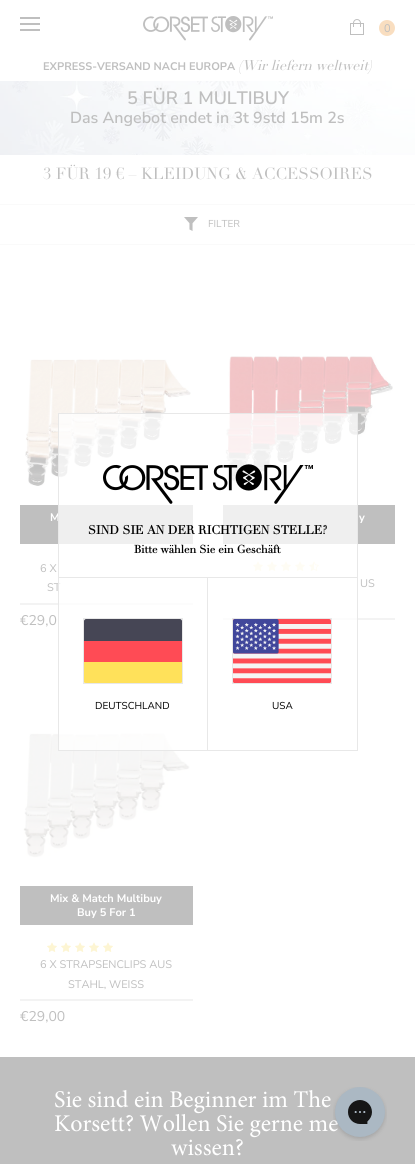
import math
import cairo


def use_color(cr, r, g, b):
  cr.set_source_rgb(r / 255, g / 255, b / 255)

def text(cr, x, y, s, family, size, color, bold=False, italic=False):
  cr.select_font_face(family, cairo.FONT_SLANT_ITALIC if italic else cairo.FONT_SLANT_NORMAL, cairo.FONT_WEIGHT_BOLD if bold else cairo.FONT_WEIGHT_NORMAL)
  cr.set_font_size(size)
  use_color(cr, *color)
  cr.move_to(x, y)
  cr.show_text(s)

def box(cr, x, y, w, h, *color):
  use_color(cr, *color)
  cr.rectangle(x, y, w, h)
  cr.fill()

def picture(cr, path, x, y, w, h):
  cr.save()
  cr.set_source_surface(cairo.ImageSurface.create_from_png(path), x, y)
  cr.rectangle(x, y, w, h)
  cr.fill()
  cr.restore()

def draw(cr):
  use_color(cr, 255, 255, 255)
  cr.paint()
  box(cr, 20, 17, 20, 2, 191, 191, 191)
  box(cr, 20, 23, 20, 2, 191, 191, 191)
  box(cr, 20, 29, 20, 2, 191, 191, 191)
  picture(cr, "img_01.png", 143, 16, 130, 25)
  picture(cr, "img_02.png", 350, 19, 14, 16)
  use_color(cr, 249, 222, 192)
  cr.arc(387, 28, 8, 0, 2 * math.pi)
  cr.fill()
  picture(cr, "img_03.png", 0, 81, 415, 74)
  box(cr, 0, 204, 415, 1, 250, 250, 250)
  box(cr, 0, 244, 415, 1, 250, 250, 250)
  picture(cr, "img_04.png", 184, 217, 14, 14)
  picture(cr, "img_05.png", 25, 359, 166, 127)
  box(cr, 20, 505, 173, 39, 191, 191, 191)
  box(cr, 20, 603, 173, 2, 243, 243, 243)
  picture(cr, "img_06.png", 225, 355, 168, 127)
  box(cr, 223, 505, 172, 39, 191, 191, 191)
  picture(cr, "img_07.png", 253, 561, 10, 10)
  picture(cr, "img_07.png", 267, 561, 10, 10)
  picture(cr, "img_07.png", 281, 561, 10, 10)
  picture(cr, "img_07.png", 295, 561, 10, 10)
  picture(cr, "img_08.png", 309, 561, 10, 10)
  box(cr, 223, 618, 172, 2, 243, 243, 243)
  picture(cr, "img_09.png", 23, 733, 167, 125)
  box(cr, 20, 886, 173, 39, 191, 191, 191)
  picture(cr, "img_07.png", 47, 942, 10, 10)
  picture(cr, "img_07.png", 61, 942, 10, 10)
  picture(cr, "img_07.png", 75, 942, 10, 10)
  picture(cr, "img_07.png", 89, 942, 10, 10)
  picture(cr, "img_07.png", 103, 942, 10, 10)
  box(cr, 20, 999, 173, 2, 243, 243, 243)
  box(cr, 0, 1057, 415, 107, 191, 191, 191)
  text(cr, 384, 32, "0", "Nunito Sans", 11, (191, 191, 191))
  text(cr, 43, 70, "EXPRESS-VERSAND NACH EUROPA", "Nunito Sans", 11, (191, 191, 191), bold=True)
  text(cr, 238, 70, "(Wir liefern weltweit)", "Didot", 14, (191, 191, 191), italic=True)
  text(cr, 127, 104, "5 FÜR 1 MULTIBUY", "Nunito Sans SemiBold", 18, (191, 191, 191))
  text(cr, 70, 123, "Das Angebot endet in 3t 9std 15m 2s", "Nunito Sans SemiBold", 16, (191, 191, 191))
  text(cr, 43, 179, "3 FÜR 19 € – KLEIDUNG & ACCESSOIRES", "Didot", 16, (191, 191, 191))
  text(cr, 208, 227, "FILTER", "Nunito Sans", 10, (191, 191, 191))
  text(cr, 50, 521, "M", "Nunito Sans", 11, (255, 255, 255), bold=True)
  text(cr, 40, 572, "6 X", "Nunito Sans", 11, (191, 191, 191))
  text(cr, 47, 591, "ST", "Nunito Sans", 11, (191, 191, 191))
  text(cr, 20, 625, "€29,0", "Nunito Sans", 14, (191, 191, 191))
  text(cr, 359, 521, "y", "Nunito Sans", 11, (255, 255, 255), bold=True)
  text(cr, 360, 587, "US", "Nunito Sans", 11, (191, 191, 191))
  text(cr, 50, 902, "Mix & Match Multibuy", "Nunito Sans", 11, (255, 255, 255), bold=True)
  text(cr, 77, 916, "Buy 5 For 1", "Nunito Sans", 11, (255, 255, 255), bold=True)
  text(cr, 40, 968, "6 X STRAPSENCLIPS AUS", "Nunito Sans", 11, (191, 191, 191))
  text(cr, 68, 988, "STAHL, WEISS", "Nunito Sans", 11, (191, 191, 191))
  text(cr, 20, 1021, "€29,00", "Nunito Sans", 14, (191, 191, 191))
  cr.set_source_rgba(1, 1, 1, 0.75)
  cr.rectangle(58.5, 413.5, 299, 337)
  cr.fill_preserve()
  use_color(cr, 232, 232, 232)
  cr.set_line_width(1)
  cr.stroke()
  picture(cr, "img_10.png", 103, 464, 210, 40)
  text(cr, 88, 534, "SIND SIE AN DER RICHTIGEN STELLE?", "Didot", 12, (0, 0, 0), bold=True)
  text(cr, 134, 553, "Bitte wählen Sie ein Geschäft", "Didot", 11, (0, 0, 0), bold=True)
  box(cr, 59, 577, 298, 1, 232, 232, 232)
  box(cr, 207, 578, 1, 172, 232, 232, 232)
  cr.rectangle(83.5, 618.5, 99, 65)
  cr.stroke()
  use_color(cr, 70, 70, 85)
  cr.new_path()
  cr.move_to(182, 641)
  cr.line_to(84, 641)
  cr.line_to(84, 621)
  cr.curve_to(84, 620, 85, 619, 86, 619)
  cr.line_to(180, 619)
  cr.curve_to(181, 619, 182, 620, 182, 621)
  cr.close_path()
  cr.fill()
  use_color(cr, 255, 225, 90)
  cr.new_path()
  cr.move_to(180, 683)
  cr.line_to(86, 683)
  cr.curve_to(85, 683, 84, 683, 84, 682)
  cr.line_to(84, 662)
  cr.line_to(182, 662)
  cr.line_to(182, 682)
  cr.curve_to(182, 683, 181, 683, 180, 683)
  cr.close_path()
  cr.fill()
  box(cr, 84, 641, 98, 21, 255, 75, 85)
  text(cr, 95, 709, "DEUTSCHLAND", "Nunito Sans", 10, (0, 0, 0))
  cr.rectangle(232.5, 618.5, 99, 65)
  use_color(cr, 232, 232, 232)
  cr.stroke()
  picture(cr, "img_11.png", 233, 619, 98, 64)
  text(cr, 272, 709, "USA", "Nunito Sans", 10, (0, 0, 0))
  text(cr, 54, 1107, "Sie sind ein Beginner im The", "Minion", 24, (255, 255, 255))
  text(cr, 54, 1131, "Korsett? Wollen Sie gerne me", "Minion", 24, (255, 255, 255))
  text(cr, 171, 1155, "wissen?", "Minion", 24, (255, 255, 255))
  picture(cr, "img_12.png", 333, 1087, 54, 54)


surface = cairo.ImageSurface(cairo.FORMAT_RGB24, 415, 1164)
cr = cairo.Context(surface)
options = cairo.FontOptions()
options.set_hint_metrics(cairo.HINT_METRICS_OFF)
options.set_hint_style(cairo.HINT_STYLE_NONE)
cr.set_font_options(options)
cr.set_miter_limit(4)
draw(cr)
surface.write_to_png("out.png")
